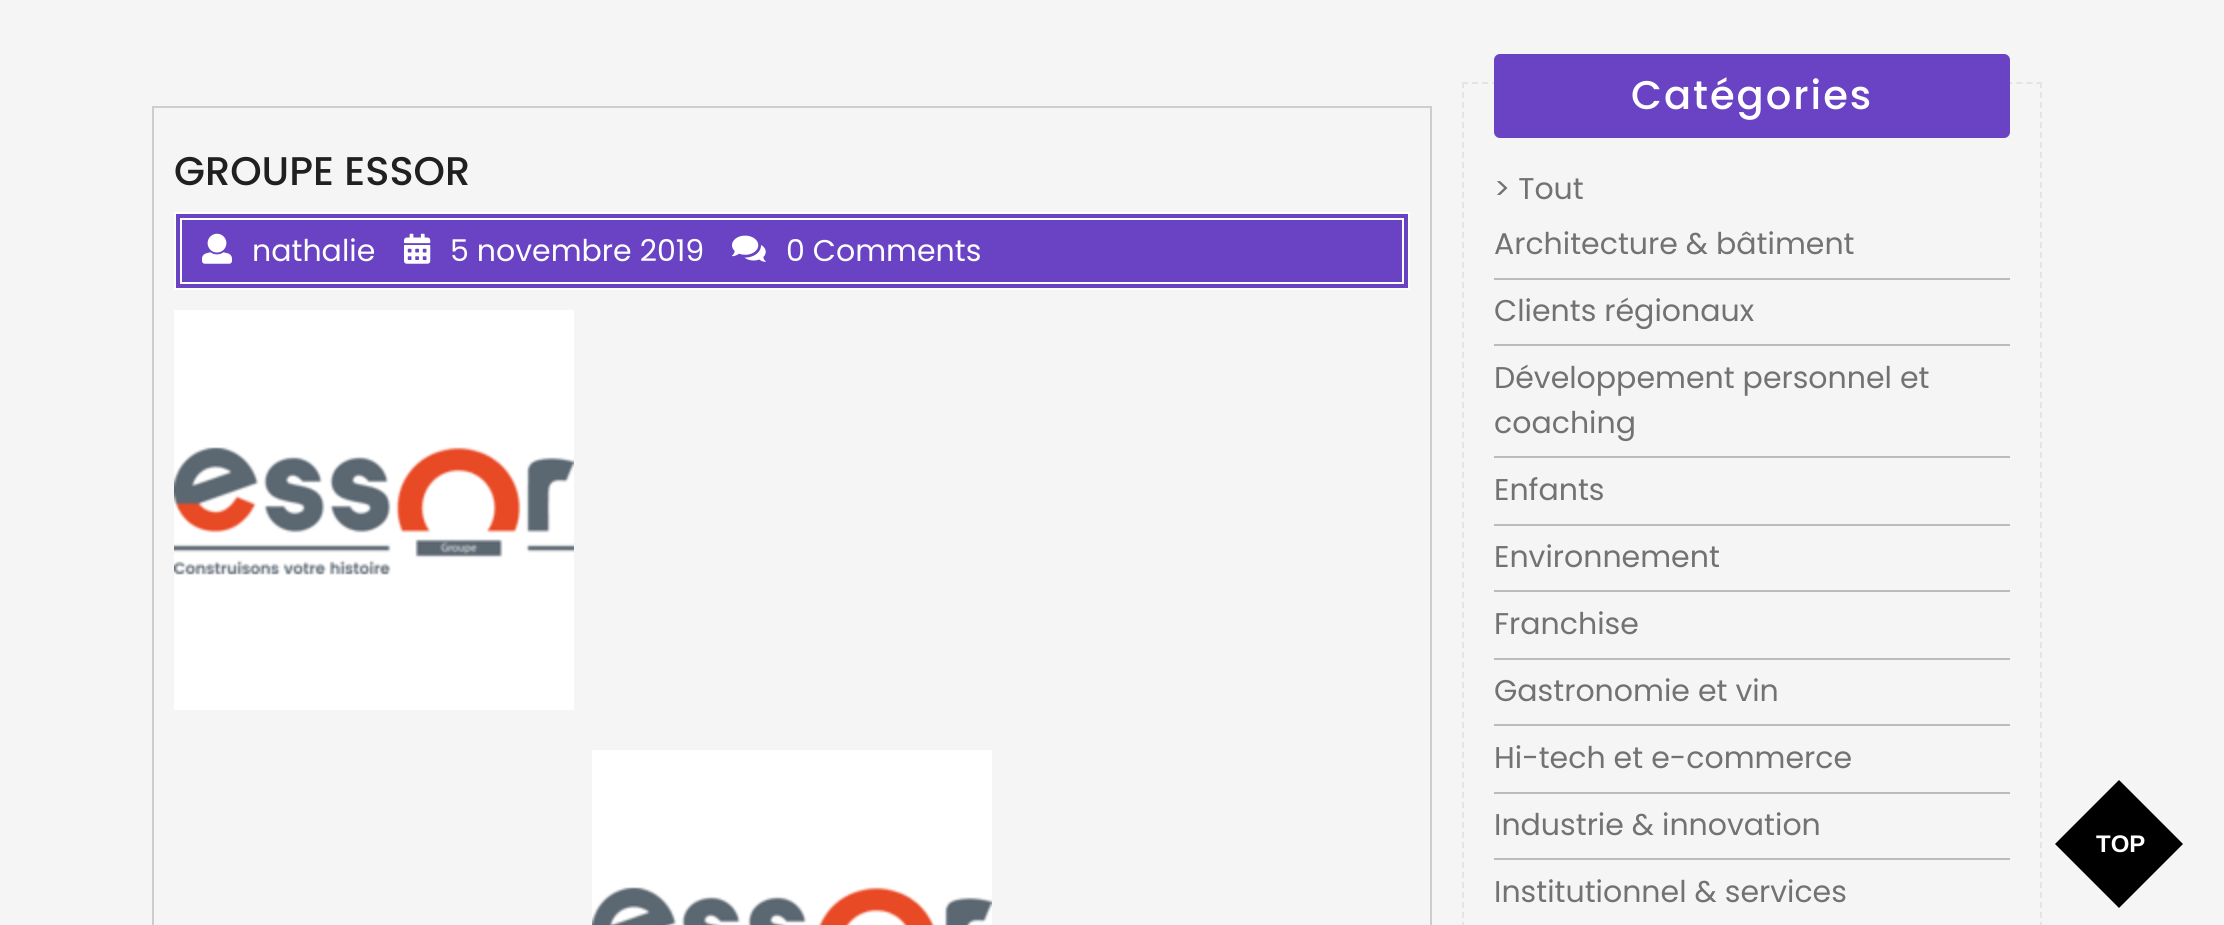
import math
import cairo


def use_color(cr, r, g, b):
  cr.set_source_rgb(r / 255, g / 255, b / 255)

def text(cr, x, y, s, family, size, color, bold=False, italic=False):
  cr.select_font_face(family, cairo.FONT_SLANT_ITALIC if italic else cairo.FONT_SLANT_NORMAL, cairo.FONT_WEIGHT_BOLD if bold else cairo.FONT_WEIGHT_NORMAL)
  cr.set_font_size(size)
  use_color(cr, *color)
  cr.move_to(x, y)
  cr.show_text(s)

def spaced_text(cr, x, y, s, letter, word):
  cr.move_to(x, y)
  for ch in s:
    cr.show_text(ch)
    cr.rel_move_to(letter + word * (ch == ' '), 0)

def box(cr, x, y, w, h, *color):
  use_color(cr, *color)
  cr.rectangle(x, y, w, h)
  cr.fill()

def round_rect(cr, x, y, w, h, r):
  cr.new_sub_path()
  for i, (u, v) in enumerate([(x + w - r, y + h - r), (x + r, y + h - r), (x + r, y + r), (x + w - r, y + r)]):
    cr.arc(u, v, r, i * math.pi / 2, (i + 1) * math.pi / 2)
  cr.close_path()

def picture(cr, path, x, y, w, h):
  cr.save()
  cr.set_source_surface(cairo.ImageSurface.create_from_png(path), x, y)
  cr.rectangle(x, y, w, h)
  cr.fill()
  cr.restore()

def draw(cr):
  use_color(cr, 245, 245, 245)
  cr.paint()
  cr.rectangle(153, 107, 1278, 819)
  use_color(cr, 205, 205, 205)
  cr.stroke()
  use_color(cr, 106, 67, 196)
  cr.rectangle(175, 213, 1234, 76)
  cr.fill_preserve()
  use_color(cr, 255, 255, 255)
  cr.stroke()
  cr.rectangle(181, 219, 1222, 64)
  cr.stroke()
  picture(cr, "img_01.png", 202, 233, 30, 31)
  picture(cr, "img_02.png", 404, 233, 27, 31)
  picture(cr, "img_03.png", 732, 235, 34, 27)
  picture(cr, "img_04.png", 174, 310, 400, 400)
  picture(cr, "img_05.png", 592, 750, 400, 175)
  cr.new_path()
  cr.move_to(1462, 83)
  cr.line_to(2042, 83)
  use_color(cr, 228, 228, 228)
  cr.set_dash([6, 4.08])
  cr.stroke()
  cr.new_path()
  cr.move_to(2041, 82)
  cr.line_to(2041, 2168)
  cr.set_dash([6, 4])
  cr.stroke()
  cr.new_path()
  cr.move_to(1463, 82)
  cr.line_to(1463, 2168)
  cr.stroke()
  use_color(cr, 106, 67, 196)
  round_rect(cr, 1494, 54, 516, 84, 6)
  cr.fill()
  box(cr, 1494, 278, 516, 2, 187, 187, 187)
  box(cr, 1494, 344, 516, 2, 187, 187, 187)
  box(cr, 1494, 456, 516, 2, 187, 187, 187)
  box(cr, 1494, 524, 516, 2, 187, 187, 187)
  box(cr, 1494, 590, 516, 2, 187, 187, 187)
  box(cr, 1494, 658, 516, 2, 187, 187, 187)
  box(cr, 1494, 724, 516, 2, 187, 187, 187)
  box(cr, 1494, 792, 516, 2, 187, 187, 187)
  box(cr, 1494, 858, 516, 2, 187, 187, 187)
  use_color(cr, 0, 0, 0)
  cr.new_path()
  cr.move_to(2055, 844)
  cr.line_to(2119, 780)
  cr.line_to(2183, 844)
  cr.line_to(2119, 908)
  cr.close_path()
  cr.fill()
  text(cr, 174, 185, "GROUPE ESSOR", "Poppins Medium", 40, (32, 32, 32))
  text(cr, 252, 261, "nathalie", "Poppins", 30, (255, 255, 255))
  text(cr, 450, 261, "5 novembre 2019", "Poppins", 30, (255, 255, 255))
  text(cr, 786, 261, "0 Comments", "Poppins", 30, (255, 255, 255))
  cr.select_font_face("Poppins Medium")
  cr.set_font_size(40)
  spaced_text(cr, 1631, 109, "Catégories", 2, 0)
  text(cr, 1494, 199, "> Tout", "Poppins", 30, (114, 114, 114))
  text(cr, 1494, 254, "Architecture & bâtiment", "Poppins", 30, (114, 114, 114))
  text(cr, 1494, 321, "Clients régionaux", "Poppins", 30, (114, 114, 114))
  text(cr, 1494, 388, "Développement personnel et", "Poppins", 30, (114, 114, 114))
  text(cr, 1494, 433, "coaching", "Poppins", 30, (114, 114, 114))
  text(cr, 1494, 500, "Enfants", "Poppins", 30, (114, 114, 114))
  text(cr, 1494, 567, "Environnement", "Poppins", 30, (114, 114, 114))
  text(cr, 1494, 634, "Franchise", "Poppins", 30, (114, 114, 114))
  text(cr, 1494, 701, "Gastronomie et vin", "Poppins", 30, (114, 114, 114))
  text(cr, 1494, 768, "Hi-tech et e-commerce", "Poppins", 30, (114, 114, 114))
  text(cr, 1494, 835, "Industrie & innovation", "Poppins", 30, (114, 114, 114))
  text(cr, 1494, 902, "Institutionnel & services", "Poppins", 30, (114, 114, 114))
  text(cr, 2096, 852, "TOP", "Liberation Sans", 24, (255, 255, 255), bold=True)


surface = cairo.ImageSurface(cairo.FORMAT_RGB24, 2224, 925)
cr = cairo.Context(surface)
options = cairo.FontOptions()
options.set_hint_metrics(cairo.HINT_METRICS_OFF)
options.set_hint_style(cairo.HINT_STYLE_NONE)
cr.set_font_options(options)
cr.set_miter_limit(4)
draw(cr)
surface.write_to_png("out.png")
